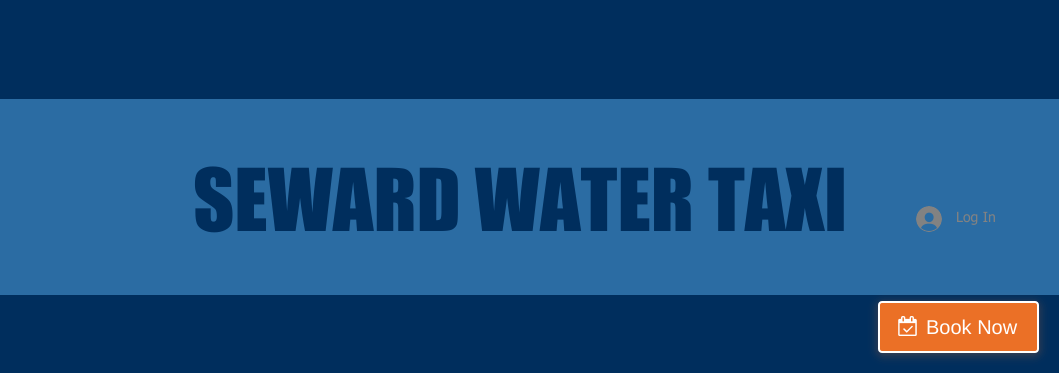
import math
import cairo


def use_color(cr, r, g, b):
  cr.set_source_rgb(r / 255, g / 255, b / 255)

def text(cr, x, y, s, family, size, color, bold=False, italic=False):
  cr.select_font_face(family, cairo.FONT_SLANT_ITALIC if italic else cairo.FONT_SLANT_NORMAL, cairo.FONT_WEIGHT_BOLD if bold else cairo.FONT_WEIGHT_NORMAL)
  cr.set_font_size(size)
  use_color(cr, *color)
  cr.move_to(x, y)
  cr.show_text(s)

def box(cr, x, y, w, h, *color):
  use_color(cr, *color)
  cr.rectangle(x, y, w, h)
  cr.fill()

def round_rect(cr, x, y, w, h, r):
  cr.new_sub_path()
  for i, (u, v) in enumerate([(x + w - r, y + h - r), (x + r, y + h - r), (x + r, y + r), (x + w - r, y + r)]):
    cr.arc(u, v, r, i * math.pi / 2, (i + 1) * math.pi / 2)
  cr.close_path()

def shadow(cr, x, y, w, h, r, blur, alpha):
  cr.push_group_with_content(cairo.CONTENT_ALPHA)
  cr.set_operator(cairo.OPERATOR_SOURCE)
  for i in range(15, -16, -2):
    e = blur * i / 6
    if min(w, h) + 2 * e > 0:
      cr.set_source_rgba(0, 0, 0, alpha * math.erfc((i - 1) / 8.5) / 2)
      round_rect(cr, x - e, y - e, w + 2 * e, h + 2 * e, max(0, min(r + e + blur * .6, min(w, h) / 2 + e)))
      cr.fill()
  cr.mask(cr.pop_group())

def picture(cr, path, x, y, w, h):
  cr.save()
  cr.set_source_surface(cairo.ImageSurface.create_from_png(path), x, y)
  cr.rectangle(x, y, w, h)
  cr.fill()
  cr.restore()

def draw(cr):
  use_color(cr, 0, 46, 93)
  cr.paint()
  box(cr, 0, 99, 1059, 196, 43, 108, 163)
  picture(cr, "img_01.png", 916, 206, 26, 26)
  use_color(cr, 235, 112, 38)
  shadow(cr, 878, 303, 161, 52, 4, 5, 0.3)
  use_color(cr, 235, 112, 38)
  round_rect(cr, 879, 302, 159, 50, 3)
  cr.fill_preserve()
  use_color(cr, 255, 255, 255)
  cr.stroke()
  picture(cr, "img_02.png", 898, 316, 19, 20)
  text(cr, 193, 231, "SEWARD WATER TAXI", "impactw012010", 80, (0, 46, 93))
  text(cr, 956, 222, "Log In", "tahoma", 14, (130, 130, 130))
  text(cr, 926, 334, "Book Now", "Liberation Sans", 20, (255, 255, 255))


surface = cairo.ImageSurface(cairo.FORMAT_RGB24, 1059, 373)
cr = cairo.Context(surface)
options = cairo.FontOptions()
options.set_hint_metrics(cairo.HINT_METRICS_OFF)
options.set_hint_style(cairo.HINT_STYLE_NONE)
cr.set_font_options(options)
cr.set_miter_limit(4)
draw(cr)
surface.write_to_png("out.png")
